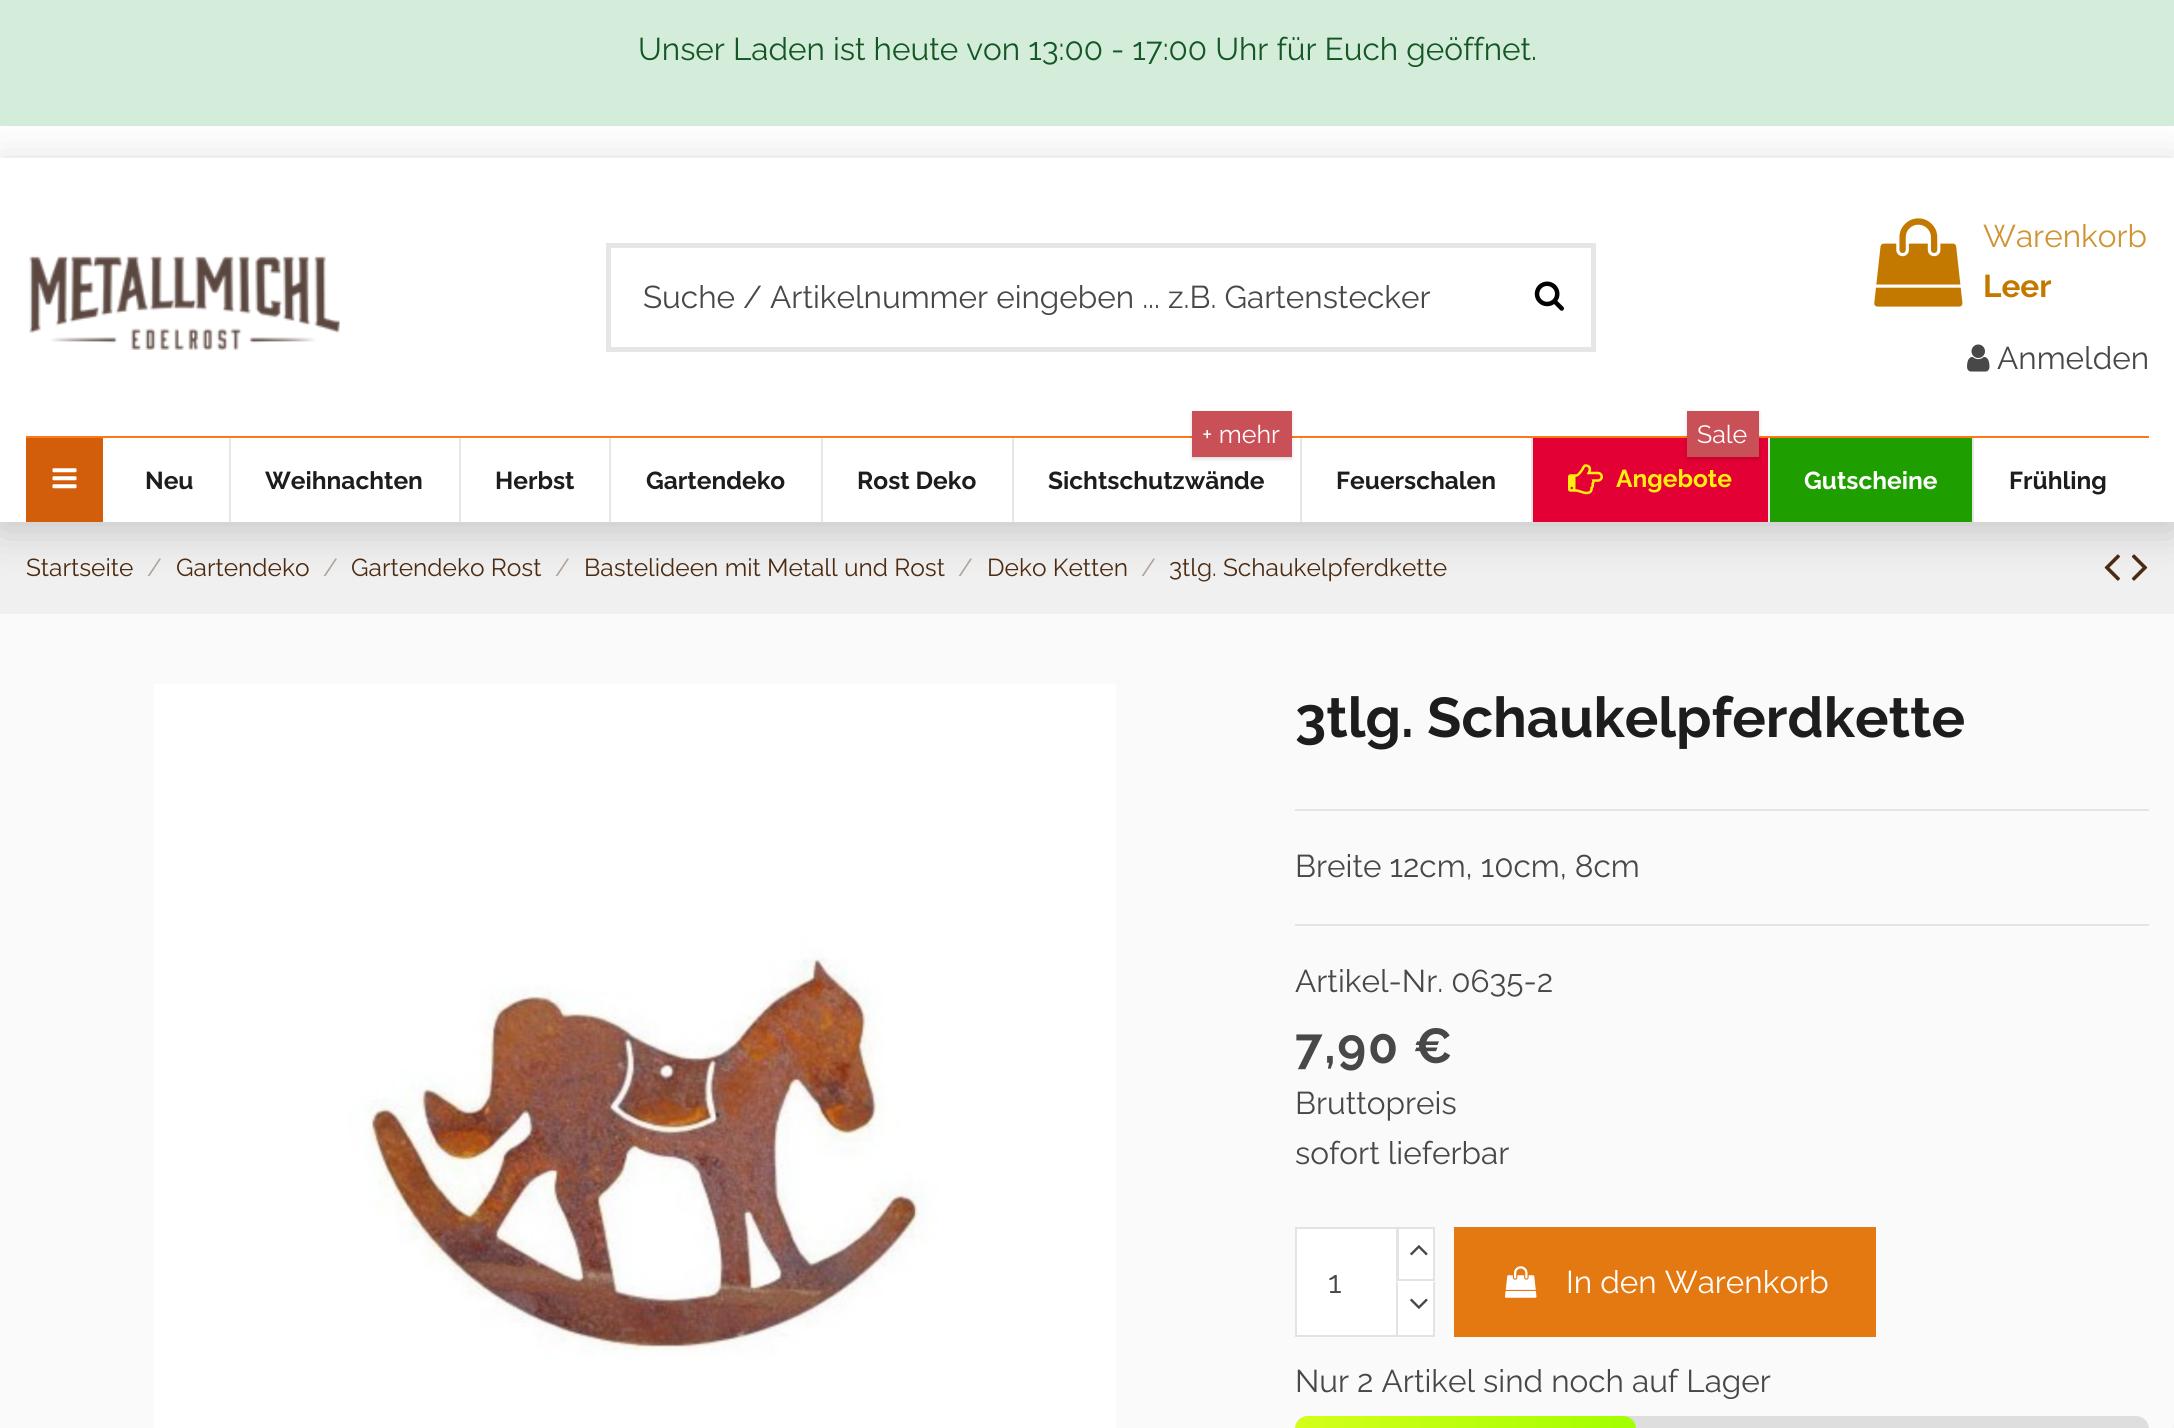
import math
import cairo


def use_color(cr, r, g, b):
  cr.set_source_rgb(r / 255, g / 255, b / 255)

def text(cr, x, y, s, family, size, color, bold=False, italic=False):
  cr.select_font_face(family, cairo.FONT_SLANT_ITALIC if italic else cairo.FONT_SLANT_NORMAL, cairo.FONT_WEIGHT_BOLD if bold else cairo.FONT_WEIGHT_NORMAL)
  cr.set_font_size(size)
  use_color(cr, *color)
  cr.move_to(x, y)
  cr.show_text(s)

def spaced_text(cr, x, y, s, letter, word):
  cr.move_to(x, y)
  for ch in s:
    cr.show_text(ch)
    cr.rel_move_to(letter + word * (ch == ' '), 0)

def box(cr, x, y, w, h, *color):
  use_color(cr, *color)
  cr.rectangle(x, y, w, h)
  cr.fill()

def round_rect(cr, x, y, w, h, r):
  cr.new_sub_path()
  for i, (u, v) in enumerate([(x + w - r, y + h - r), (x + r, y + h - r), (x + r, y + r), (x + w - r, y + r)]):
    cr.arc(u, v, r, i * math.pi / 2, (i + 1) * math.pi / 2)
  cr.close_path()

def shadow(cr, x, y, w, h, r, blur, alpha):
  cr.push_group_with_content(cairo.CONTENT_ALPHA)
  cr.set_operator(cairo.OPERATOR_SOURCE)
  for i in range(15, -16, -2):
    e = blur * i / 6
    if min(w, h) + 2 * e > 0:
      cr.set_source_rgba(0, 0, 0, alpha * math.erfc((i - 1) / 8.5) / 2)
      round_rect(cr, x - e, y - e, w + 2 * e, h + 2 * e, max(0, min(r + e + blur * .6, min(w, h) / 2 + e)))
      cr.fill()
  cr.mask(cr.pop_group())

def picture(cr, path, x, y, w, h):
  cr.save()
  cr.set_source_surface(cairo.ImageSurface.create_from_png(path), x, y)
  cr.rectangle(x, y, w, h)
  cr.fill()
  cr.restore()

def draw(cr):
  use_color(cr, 255, 255, 255)
  cr.paint()
  box(cr, 0, 0, 2174, 126, 212, 237, 218)
  box(cr, 0, 522, 2174, 92, 240, 240, 240)
  picture(cr, "img_07.png", 2104, 554, 16, 27)
  picture(cr, "img_08.png", 2131, 554, 17, 27)
  use_color(cr, 0, 0, 0)
  shadow(cr, 0, 166, 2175, 364, 0, 22, 0.18)
  box(cr, 0, 158, 2174, 364, 255, 255, 255)
  picture(cr, "img_01.png", 29, 255, 311, 95)
  cr.rectangle(608.5, 245.5, 985, 104)
  use_color(cr, 230, 230, 230)
  cr.set_line_width(5)
  cr.stroke()
  picture(cr, "img_02.png", 1534, 281, 30, 30)
  picture(cr, "img_03.png", 1874, 218, 89, 89)
  picture(cr, "img_04.png", 1967, 344, 23, 28)
  box(cr, 26, 436, 2123, 2, 255, 119, 22)
  box(cr, 26, 438, 77, 84, 210, 94, 12)
  picture(cr, "img_05.png", 52, 468, 25, 21)
  box(cr, 229, 438, 2, 84, 230, 230, 230)
  box(cr, 459, 438, 2, 84, 230, 230, 230)
  box(cr, 609, 438, 2, 84, 230, 230, 230)
  box(cr, 821, 438, 2, 84, 230, 230, 230)
  box(cr, 1012, 438, 2, 84, 230, 230, 230)
  use_color(cr, 0, 0, 0)
  shadow(cr, 1192, 413, 100, 46, 0, 2, 0.15)
  box(cr, 1192, 411, 100, 46, 202, 80, 88)
  box(cr, 1300, 438, 2, 84, 230, 230, 230)
  box(cr, 1533, 438, 235, 84, 226, 0, 52)
  box(cr, 1531, 438, 2, 84, 230, 230, 230)
  use_color(cr, 0, 0, 0)
  shadow(cr, 1687, 413, 72, 46, 0, 2, 0.15)
  box(cr, 1687, 411, 72, 46, 202, 80, 88)
  picture(cr, "img_06.png", 1568, 464, 35, 31)
  box(cr, 1770, 438, 202, 84, 31, 158, 0)
  box(cr, 1768, 438, 2, 84, 230, 230, 230)
  box(cr, 1972, 438, 2, 84, 230, 230, 230)
  box(cr, 0, 614, 2174, 814, 250, 250, 250)
  picture(cr, "img_09.png", 154, 684, 962, 744)
  box(cr, 1295, 809, 854, 2, 228, 228, 228)
  box(cr, 1295, 924, 854, 2, 228, 228, 228)
  use_color(cr, 255, 255, 255)
  cr.rectangle(1296, 1228, 101, 108)
  cr.fill_preserve()
  use_color(cr, 227, 227, 227)
  cr.set_line_width(2)
  cr.stroke()
  use_color(cr, 255, 255, 255)
  cr.rectangle(1398, 1228, 36, 52)
  cr.fill_preserve()
  use_color(cr, 227, 227, 227)
  cr.stroke()
  picture(cr, "img_10.png", 1410, 1245, 18, 11)
  box(cr, 1397, 1281, 38, 54, 255, 255, 255)
  use_color(cr, 227, 227, 227)
  cr.new_path()
  cr.move_to(1435, 1281)
  cr.line_to(1435, 1337)
  cr.line_to(1433, 1335)
  cr.line_to(1433, 1283)
  cr.close_path()
  cr.fill()
  box(cr, 1397, 1335, 38, 2, 227, 227, 227)
  cr.new_path()
  cr.move_to(1396, 1337)
  cr.line_to(1396, 1281)
  cr.line_to(1398, 1283)
  cr.line_to(1398, 1335)
  cr.close_path()
  cr.fill()
  picture(cr, "img_11.png", 1410, 1298, 18, 11)
  box(cr, 1454, 1227, 422, 110, 228, 121, 17)
  picture(cr, "img_12.png", 1505, 1266, 32, 32)
  use_color(cr, 222, 222, 222)
  round_rect(cr, 1295, 1416, 854, 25, 13)
  cr.fill()
  gradient = cairo.LinearGradient(1295, 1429, 1636, 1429)
  gradient.add_color_stop_rgba(0, 0.831, 1, 0.106, 1)
  gradient.add_color_stop_rgba(1, 0.635, 1, 0, 1)
  cr.set_source(gradient)
  round_rect(cr, 1295, 1416, 341, 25, 13)
  cr.fill()
  box(cr, 2172, 1425, 2, 3, 245, 245, 245)
  text(cr, 638, 60, "Unser Laden ist heute von 13:00 - 17:00 Uhr für Euch geöffnet.", "Raleway", 31.5, (21, 87, 36))
  text(cr, 643, 308, "Suche / Artikelnummer eingeben ... z.B. Gartenstecker", "Raleway", 31.5, (72, 72, 72))
  text(cr, 1983, 247, "Warenkorb", "Raleway", 31.5, (207, 148, 51))
  text(cr, 1983, 297, "Leer", "Raleway", 31.5, (195, 121, 0), bold=True)
  text(cr, 1997, 369, "Anmelden", "Raleway", 31.5, (72, 72, 72))
  text(cr, 145, 489, "Neu", "Raleway", 24.5, (29, 29, 29), bold=True)
  text(cr, 265, 489, "Weihnachten", "Raleway", 24.5, (29, 29, 29), bold=True)
  text(cr, 495, 489, "Herbst", "Raleway", 24.5, (29, 29, 29), bold=True)
  text(cr, 646, 489, "Gartendeko", "Raleway", 24.5, (29, 29, 29), bold=True)
  text(cr, 857, 489, "Rost Deko", "Raleway", 24.5, (29, 29, 29), bold=True)
  text(cr, 1202, 443, "+ mehr", "Raleway", 25, (255, 255, 255))
  text(cr, 1048, 489, "Sichtschutzwände", "Raleway", 24.5, (29, 29, 29), bold=True)
  text(cr, 1336, 489, "Feuerschalen", "Raleway", 24.5, (29, 29, 29), bold=True)
  text(cr, 1697, 443, "Sale", "Raleway", 25, (255, 255, 255))
  text(cr, 1616, 487, "Angebote", "Raleway", 24.5, (255, 239, 15), bold=True)
  text(cr, 1804, 489, "Gutscheine", "Raleway", 24.5, (255, 255, 255), bold=True)
  text(cr, 2009, 489, "Frühling", "Raleway", 24.5, (29, 29, 29), bold=True)
  text(cr, 26, 576, "Startseite", "Raleway", 24.5, (76, 43, 17))
  text(cr, 147, 576, "/", "Raleway", 24.5, (174, 161, 151))
  text(cr, 176, 576, "Gartendeko", "Raleway", 24.5, (76, 43, 17))
  text(cr, 323, 576, "/", "Raleway", 24.5, (174, 161, 151))
  text(cr, 351, 576, "Gartendeko Rost", "Raleway", 24.5, (76, 43, 17))
  text(cr, 555, 576, "/", "Raleway", 24.5, (174, 161, 151))
  text(cr, 584, 576, "Bastelideen mit Metall und Rost", "Raleway", 24.5, (76, 43, 17))
  text(cr, 958, 576, "/", "Raleway", 24.5, (174, 161, 151))
  text(cr, 987, 576, "Deko Ketten", "Raleway", 24.5, (76, 43, 17))
  text(cr, 1141, 576, "/", "Raleway", 24.5, (174, 161, 151))
  text(cr, 1169, 576, "3tlg. Schaukelpferdkette", "Raleway", 24.5, (76, 43, 17))
  text(cr, 1295, 737, "3tlg. Schaukelpferdkette", "Raleway", 56, (29, 29, 29), bold=True)
  text(cr, 1295, 877, "Breite 12cm, 10cm, 8cm", "Raleway", 31.5, (72, 72, 72))
  text(cr, 1295, 992, "Artikel-Nr. 0635-2", "Raleway", 31.5, (72, 72, 72))
  cr.select_font_face("Raleway", cairo.FONT_SLANT_NORMAL, cairo.FONT_WEIGHT_BOLD)
  cr.set_font_size(49)
  spaced_text(cr, 1295, 1063, "7,90 €", 1.75, 0)
  text(cr, 1295, 1114, "Bruttopreis", "Raleway", 31.5, (72, 72, 72))
  text(cr, 1295, 1164, "sofort lieferbar", "Raleway", 31.5, (72, 72, 72))
  text(cr, 1328, 1293, "1", "Raleway", 31.5, (72, 72, 72))
  text(cr, 1566, 1293, "In den Warenkorb", "Raleway", 31.5, (255, 255, 255))
  text(cr, 1295, 1392, "Nur 2 Artikel sind noch auf Lager", "Raleway", 31.5, (72, 72, 72))


surface = cairo.ImageSurface(cairo.FORMAT_RGB24, 2174, 1428)
cr = cairo.Context(surface)
options = cairo.FontOptions()
options.set_hint_metrics(cairo.HINT_METRICS_OFF)
options.set_hint_style(cairo.HINT_STYLE_NONE)
cr.set_font_options(options)
cr.set_miter_limit(4)
draw(cr)
surface.write_to_png("out.png")
